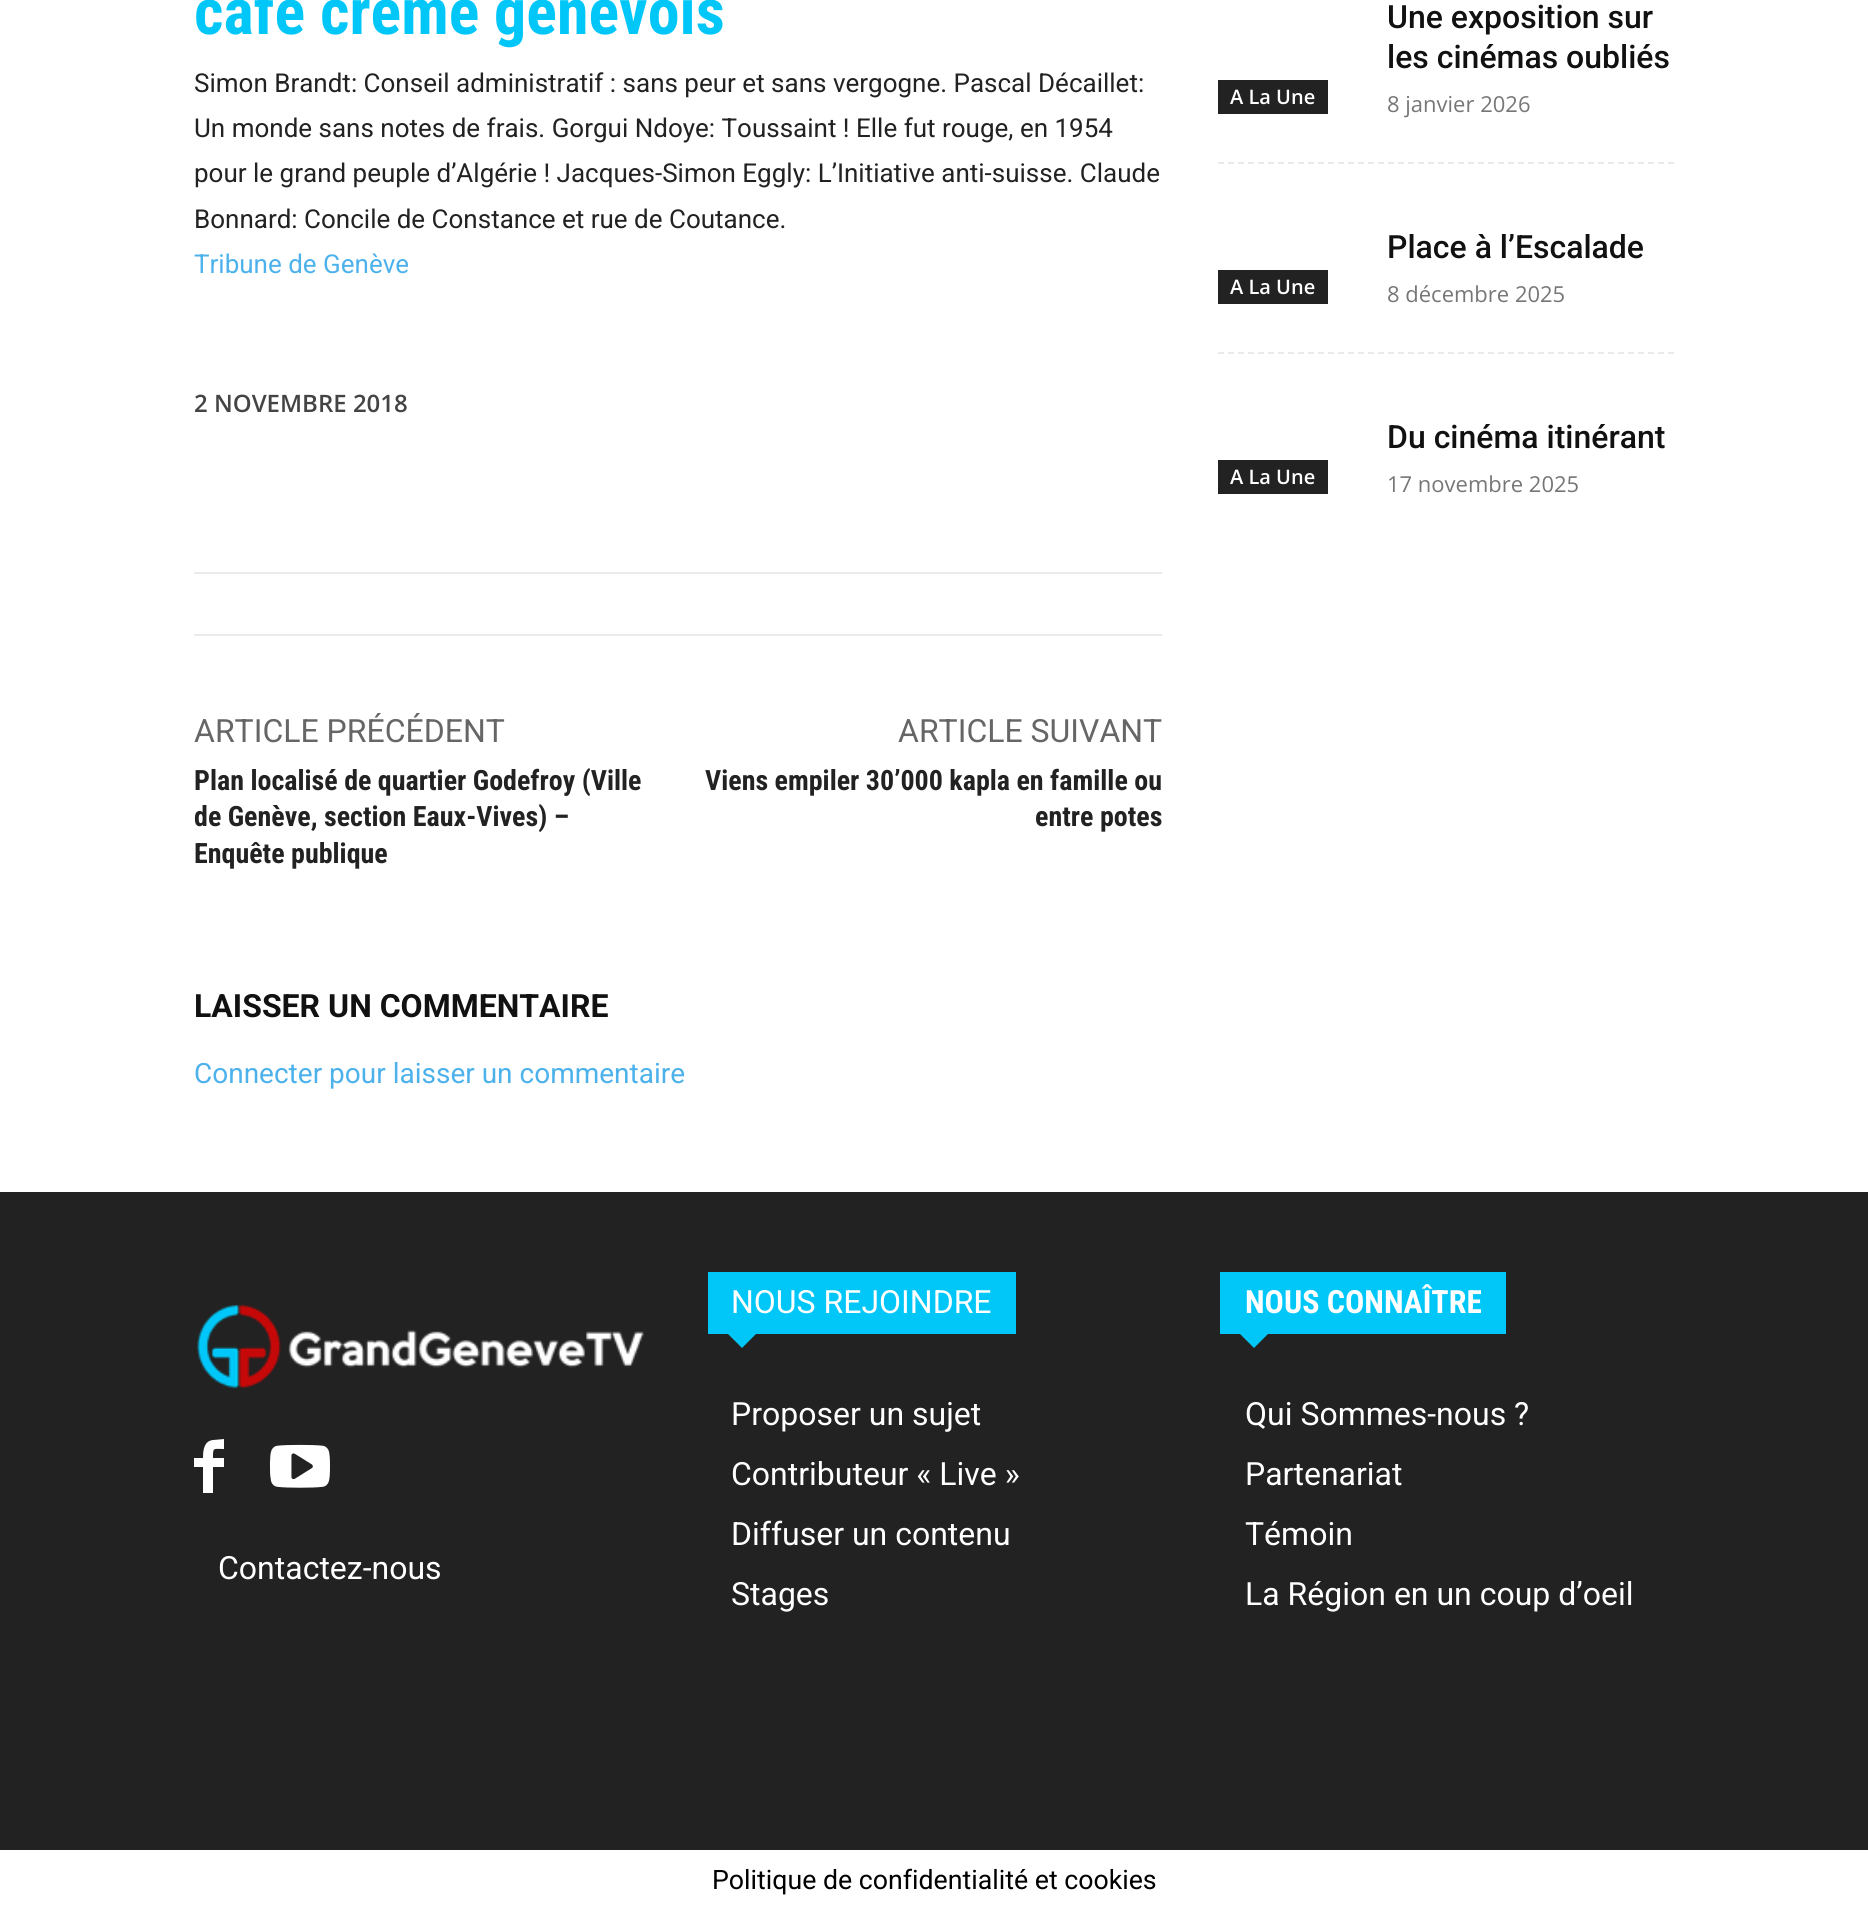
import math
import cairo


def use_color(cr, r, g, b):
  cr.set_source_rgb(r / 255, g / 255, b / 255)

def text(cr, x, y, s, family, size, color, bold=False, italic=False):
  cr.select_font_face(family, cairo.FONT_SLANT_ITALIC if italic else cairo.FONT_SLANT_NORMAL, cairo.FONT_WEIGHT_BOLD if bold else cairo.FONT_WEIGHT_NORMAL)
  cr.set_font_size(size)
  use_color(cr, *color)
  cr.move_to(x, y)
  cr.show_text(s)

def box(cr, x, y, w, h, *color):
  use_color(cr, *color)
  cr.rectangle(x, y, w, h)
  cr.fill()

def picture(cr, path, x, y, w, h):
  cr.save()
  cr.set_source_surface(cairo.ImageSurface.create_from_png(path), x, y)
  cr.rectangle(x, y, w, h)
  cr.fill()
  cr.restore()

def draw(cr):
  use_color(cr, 255, 255, 255)
  cr.paint()
  box(cr, 194, 572, 968, 2, 235, 235, 235)
  box(cr, 194, 634, 968, 2, 235, 235, 235)
  box(cr, 1218, 80, 110, 34, 34, 34, 34)
  cr.new_path()
  cr.move_to(1218, 163)
  cr.line_to(1674, 163)
  use_color(cr, 234, 234, 234)
  cr.set_dash([6, 4])
  cr.stroke()
  box(cr, 1218, 270, 110, 34, 34, 34, 34)
  cr.new_path()
  cr.move_to(1218, 353)
  cr.line_to(1674, 353)
  use_color(cr, 234, 234, 234)
  cr.stroke()
  box(cr, 1218, 460, 110, 34, 34, 34, 34)
  box(cr, 0, 1192, 1868, 658, 34, 34, 34)
  picture(cr, "img_01.png", 197, 1304, 447, 85)
  use_color(cr, 255, 255, 255)
  cr.new_path()
  cr.move_to(224, 1449)
  cr.curve_to(213, 1449, 213, 1447, 213, 1458)
  cr.line_to(224, 1458)
  cr.line_to(224, 1467)
  cr.line_to(213, 1467)
  cr.line_to(213, 1493)
  cr.line_to(203, 1493)
  cr.line_to(203, 1467)
  cr.line_to(194, 1467)
  cr.line_to(194, 1458)
  cr.line_to(203, 1458)
  cr.curve_to(203, 1450, 204, 1441, 213, 1440)
  cr.line_to(224, 1439)
  cr.close_path()
  cr.fill()
  picture(cr, "img_02.png", 269, 1444, 61, 44)
  box(cr, 708, 1272, 308, 62, 1, 199, 248)
  cr.new_path()
  cr.move_to(728, 1334)
  cr.line_to(756, 1334)
  cr.line_to(742, 1348)
  cr.close_path()
  cr.fill()
  box(cr, 1220, 1272, 286, 62, 1, 199, 248)
  cr.new_path()
  cr.move_to(1240, 1334)
  cr.line_to(1268, 1334)
  cr.line_to(1254, 1348)
  cr.close_path()
  cr.fill()
  text(cr, 194, 34, "café crème genevois", "Roboto Condensed", 64, (1, 199, 248), bold=True)
  text(cr, 194, 92, "Simon Brandt: Conseil administratif : sans peur et sans vergogne. Pascal Décaillet:", "Roboto", 26, (34, 34, 34))
  text(cr, 194, 137, "Un monde sans notes de frais. Gorgui Ndoye: Toussaint ! Elle fut rouge, en 1954", "Roboto", 26, (34, 34, 34))
  text(cr, 194, 182, "pour le grand peuple d’Algérie ! Jacques-Simon Eggly: L’Initiative anti-suisse. Claude", "Roboto", 26, (34, 34, 34))
  text(cr, 194, 228, "Bonnard: Concile de Constance et rue de Coutance.", "Roboto", 26, (34, 34, 34))
  text(cr, 194, 273, "Tribune de Genève", "Roboto", 26, (77, 178, 236))
  text(cr, 194, 412, "2 NOVEMBRE 2018", "Open Sans SemiBold", 24, (68, 68, 68))
  text(cr, 194, 742, "ARTICLE PRÉCÉDENT", "Roboto", 32, (102, 102, 102))
  text(cr, 194, 790, "Plan localisé de quartier Godefroy (Ville", "Roboto Condensed", 28, (34, 34, 34), bold=True)
  text(cr, 194, 826, "de Genève, section Eaux-Vives) –", "Roboto Condensed", 28, (34, 34, 34), bold=True)
  text(cr, 194, 863, "Enquête publique", "Roboto Condensed", 28, (34, 34, 34), bold=True)
  text(cr, 898, 742, "ARTICLE SUIVANT", "Roboto", 32, (102, 102, 102))
  text(cr, 705, 790, "Viens empiler 30’000 kapla en famille ou", "Roboto Condensed", 28, (34, 34, 34), bold=True)
  text(cr, 1035, 826, "entre potes", "Roboto Condensed", 28, (34, 34, 34), bold=True)
  text(cr, 194, 1017, "LAISSER UN COMMENTAIRE", "Roboto", 32, (17, 17, 17), bold=True)
  text(cr, 194, 1083, "Connecter pour laisser un commentaire", "Roboto", 28, (77, 178, 236))
  text(cr, 1230, 104, "A La Une", "Open Sans SemiBold", 20, (255, 255, 255))
  text(cr, 1387, 28, "Une exposition sur", "Roboto Medium", 32, (17, 17, 17))
  text(cr, 1387, 68, "les cinémas oubliés", "Roboto Medium", 32, (17, 17, 17))
  text(cr, 1387, 112, "8 janvier 2026", "Open Sans", 22, (118, 118, 118))
  text(cr, 1230, 294, "A La Une", "Open Sans SemiBold", 20, (255, 255, 255))
  text(cr, 1387, 258, "Place à l’Escalade", "Roboto Medium", 32, (17, 17, 17))
  text(cr, 1387, 302, "8 décembre 2025", "Open Sans", 22, (118, 118, 118))
  text(cr, 1230, 484, "A La Une", "Open Sans SemiBold", 20, (255, 255, 255))
  text(cr, 1387, 448, "Du cinéma itinérant", "Roboto Medium", 32, (17, 17, 17))
  text(cr, 1387, 492, "17 novembre 2025", "Open Sans", 22, (118, 118, 118))
  text(cr, 218, 1579, "Contactez-nous", "Roboto", 32, (255, 255, 255))
  text(cr, 731, 1313, "NOUS REJOINDRE", "Roboto", 32, (255, 255, 255))
  text(cr, 731, 1425, "Proposer un sujet", "Roboto", 32, (255, 255, 255))
  text(cr, 731, 1485, "Contributeur « Live »", "Roboto", 32, (255, 255, 255))
  text(cr, 731, 1545, "Diffuser un contenu", "Roboto", 32, (255, 255, 255))
  text(cr, 731, 1605, "Stages", "Roboto", 32, (255, 255, 255))
  text(cr, 1245, 1313, "NOUS CONNAÎTRE", "Roboto Condensed", 32, (255, 255, 255), bold=True)
  text(cr, 1245, 1425, "Qui Sommes-nous ?", "Roboto", 32, (255, 255, 255))
  text(cr, 1245, 1485, "Partenariat", "Roboto", 32, (255, 255, 255))
  text(cr, 1245, 1545, "Témoin", "Roboto", 32, (255, 255, 255))
  text(cr, 1245, 1605, "La Région en un coup d’oeil", "Roboto", 32, (255, 255, 255))
  text(cr, 712, 1889, "Politique de confidentialité et cookies", "Roboto", 26.7, (0, 0, 0))


surface = cairo.ImageSurface(cairo.FORMAT_RGB24, 1868, 1911)
cr = cairo.Context(surface)
options = cairo.FontOptions()
options.set_hint_metrics(cairo.HINT_METRICS_OFF)
options.set_hint_style(cairo.HINT_STYLE_NONE)
cr.set_font_options(options)
cr.set_miter_limit(4)
draw(cr)
surface.write_to_png("out.png")
